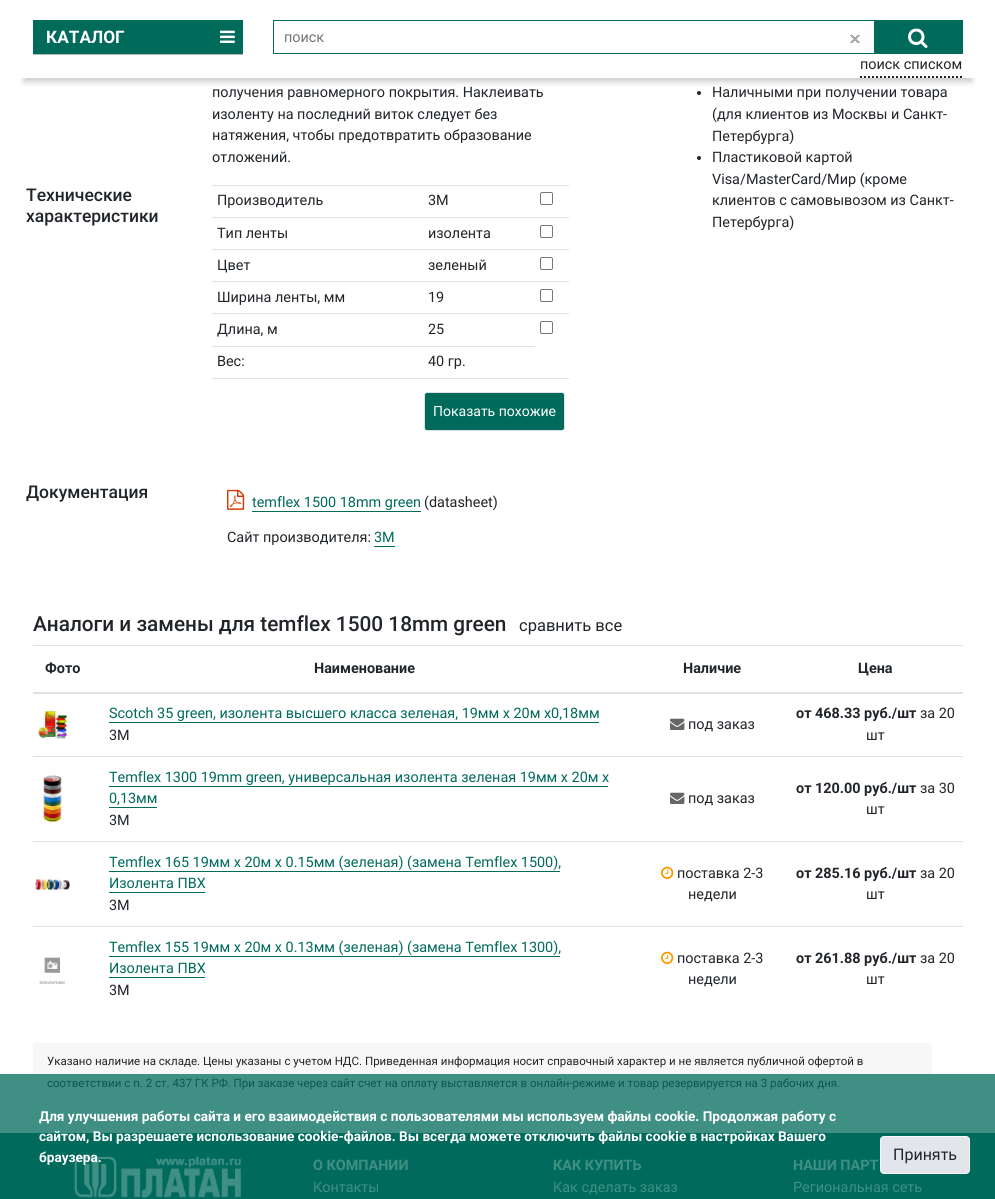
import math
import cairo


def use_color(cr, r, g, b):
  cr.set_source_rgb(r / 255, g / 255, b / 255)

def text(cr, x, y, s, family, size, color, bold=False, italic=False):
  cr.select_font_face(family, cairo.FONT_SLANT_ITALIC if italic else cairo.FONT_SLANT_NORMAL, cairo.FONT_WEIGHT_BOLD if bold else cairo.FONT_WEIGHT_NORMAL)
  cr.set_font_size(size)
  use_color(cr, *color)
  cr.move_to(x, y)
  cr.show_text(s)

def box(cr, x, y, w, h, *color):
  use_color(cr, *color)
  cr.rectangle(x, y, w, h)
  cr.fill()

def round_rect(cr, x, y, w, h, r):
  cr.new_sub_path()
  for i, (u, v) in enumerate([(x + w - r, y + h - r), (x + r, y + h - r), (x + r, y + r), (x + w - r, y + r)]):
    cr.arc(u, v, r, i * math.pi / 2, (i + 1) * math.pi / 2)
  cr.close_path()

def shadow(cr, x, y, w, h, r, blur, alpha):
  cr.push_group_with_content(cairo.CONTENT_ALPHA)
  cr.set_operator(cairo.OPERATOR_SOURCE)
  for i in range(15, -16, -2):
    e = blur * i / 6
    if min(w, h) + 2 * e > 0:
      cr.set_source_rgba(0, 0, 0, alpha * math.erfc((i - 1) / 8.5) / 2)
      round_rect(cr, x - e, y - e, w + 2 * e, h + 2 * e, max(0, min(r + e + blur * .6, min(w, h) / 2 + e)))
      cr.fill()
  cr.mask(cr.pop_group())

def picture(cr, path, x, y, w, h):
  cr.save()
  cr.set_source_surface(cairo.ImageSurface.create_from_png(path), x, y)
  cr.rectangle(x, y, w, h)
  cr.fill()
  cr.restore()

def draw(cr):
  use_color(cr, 255, 255, 255)
  cr.paint()
  box(cr, 0, 1074, 995, 59, 64, 143, 132)
  use_color(cr, 33, 37, 41)
  cr.arc(699, 93, 2, 0, 2 * math.pi)
  cr.fill()
  use_color(cr, 0, 0, 0)
  shadow(cr, 24, 16, 948, 66, 0, 3, 0.2)
  box(cr, 19, 11, 958, 67, 255, 255, 255)
  box(cr, 33, 20, 210, 34, 0, 106, 91)
  box(cr, 33, 54, 210, 1, 183, 183, 183)
  picture(cr, "img_01.png", 220, 30, 15, 13)
  cr.rectangle(273.5, 20.5, 689, 33)
  use_color(cr, 0, 106, 91)
  cr.set_line_width(1)
  cr.stroke()
  picture(cr, "img_02.png", 850, 35, 10, 8)
  box(cr, 874, 21, 88, 32, 0, 106, 91)
  picture(cr, "img_03.png", 908, 28, 20, 20)
  cr.new_path()
  cr.move_to(860, 77)
  cr.line_to(963, 77)
  use_color(cr, 33, 37, 41)
  cr.set_line_width(2)
  cr.set_dash([2, 2])
  cr.stroke()
  box(cr, 212, 185, 357, 1, 222, 226, 230)
  round_rect(cr, 540.5, 192.5, 12, 12, 1.5)
  use_color(cr, 118, 118, 118)
  cr.set_line_width(1)
  cr.set_dash([])
  cr.stroke()
  box(cr, 212, 217, 357, 1, 222, 226, 230)
  round_rect(cr, 540.5, 225.5, 12, 12, 1.5)
  use_color(cr, 118, 118, 118)
  cr.stroke()
  box(cr, 212, 249, 357, 1, 222, 226, 230)
  round_rect(cr, 540.5, 257.5, 12, 12, 1.5)
  use_color(cr, 118, 118, 118)
  cr.stroke()
  box(cr, 212, 281, 357, 1, 222, 226, 230)
  round_rect(cr, 540.5, 289.5, 12, 12, 1.5)
  use_color(cr, 118, 118, 118)
  cr.stroke()
  box(cr, 212, 313, 357, 1, 222, 226, 230)
  round_rect(cr, 540.5, 321.5, 12, 12, 1.5)
  use_color(cr, 118, 118, 118)
  cr.stroke()
  box(cr, 212, 346, 323, 1, 222, 226, 230)
  box(cr, 212, 378, 357, 1, 222, 226, 230)
  use_color(cr, 0, 106, 91)
  round_rect(cr, 424.5, 392.5, 140, 38, 2.5)
  cr.fill_preserve()
  use_color(cr, 222, 226, 230)
  cr.stroke()
  picture(cr, "img_04.png", 227, 489, 18, 21)
  box(cr, 252, 511, 169, 1, 0, 106, 91)
  box(cr, 374, 546, 21, 1, 0, 106, 91)
  use_color(cr, 33, 37, 41)
  cr.arc(699, 158, 2, 0, 2 * math.pi)
  cr.fill()
  box(cr, 33, 645, 930, 1, 222, 226, 230)
  box(cr, 33, 692, 930, 2, 222, 226, 230)
  picture(cr, "img_05.png", 38, 711, 29, 28)
  box(cr, 109, 722, 490, 1, 0, 106, 91)
  picture(cr, "img_06.png", 670, 718, 15, 12)
  picture(cr, "img_07.png", 43, 775, 19, 48)
  box(cr, 109, 786, 499, 1, 0, 106, 91)
  box(cr, 109, 807, 48, 1, 0, 106, 91)
  picture(cr, "img_06.png", 670, 792, 15, 12)
  box(cr, 33, 756, 930, 1, 222, 226, 230)
  picture(cr, "img_08.png", 35, 878, 35, 12)
  box(cr, 109, 871, 451, 1, 0, 106, 91)
  box(cr, 109, 892, 96, 1, 0, 106, 91)
  picture(cr, "img_09.png", 661, 866, 13, 13)
  box(cr, 33, 841, 930, 1, 222, 226, 230)
  picture(cr, "img_10.png", 39, 957, 27, 27)
  box(cr, 109, 956, 451, 1, 0, 106, 91)
  box(cr, 109, 977, 96, 1, 0, 106, 91)
  picture(cr, "img_09.png", 661, 951, 13, 13)
  box(cr, 33, 926, 930, 1, 222, 226, 230)
  box(cr, 33, 1043, 899, 31, 247, 247, 247)
  box(cr, 0, 1133, 995, 66, 0, 107, 92)
  use_color(cr, 226, 230, 234)
  round_rect(cr, 880.5, 1136.5, 89, 37, 3.5)
  cr.fill_preserve()
  use_color(cr, 248, 249, 250)
  cr.stroke()
  picture(cr, "img_11.png", 74, 1156, 167, 42)
  text(cr, 46, 43, "КАТАЛОГ", "Roboto", 17.25, (255, 255, 255), bold=True)
  text(cr, 284, 42, "поиск", "Roboto", 14.4, (117, 117, 117))
  text(cr, 860, 69, "поиск списком", "Roboto", 14.4, (33, 37, 41))
  text(cr, 212, 97, "получения равномерного покрытия. Наклеивать", "Roboto", 14.4, (33, 37, 41))
  text(cr, 212, 119, "изоленту на последний виток следует без", "Roboto", 14.4, (33, 37, 41))
  text(cr, 212, 140, "натяжения, чтобы предотвратить образование", "Roboto", 14.4, (33, 37, 41))
  text(cr, 212, 162, "отложений.", "Roboto", 14.4, (33, 37, 41))
  text(cr, 26, 201, "Технические", "Roboto Medium", 17.5, (33, 37, 41))
  text(cr, 26, 222, "характеристики", "Roboto Medium", 17.5, (33, 37, 41))
  text(cr, 217, 205, "Производитель", "Roboto", 14.4, (33, 37, 41))
  text(cr, 428, 205, "3M", "Roboto", 14.4, (33, 37, 41))
  text(cr, 217, 238, "Тип ленты", "Roboto", 14.4, (33, 37, 41))
  text(cr, 428, 238, "изолента", "Roboto", 14.4, (33, 37, 41))
  text(cr, 217, 270, "Цвет", "Roboto", 14.4, (33, 37, 41))
  text(cr, 428, 270, "зеленый", "Roboto", 14.4, (33, 37, 41))
  text(cr, 217, 302, "Ширина ленты, мм", "Roboto", 14.4, (33, 37, 41))
  text(cr, 428, 302, "19", "Roboto", 14.4, (33, 37, 41))
  text(cr, 217, 334, "Длина, м", "Roboto", 14.4, (33, 37, 41))
  text(cr, 428, 334, "25", "Roboto", 14.4, (33, 37, 41))
  text(cr, 217, 366, "Вес:", "Roboto", 14.4, (33, 37, 41))
  text(cr, 428, 366, "40 гр.", "Roboto", 14.4, (33, 37, 41))
  text(cr, 433, 416, "Показать похожие", "Roboto", 14, (255, 255, 255))
  text(cr, 26, 498, "Документация", "Roboto Medium", 17.5, (33, 37, 41))
  text(cr, 252, 507, "temflex 1500 18mm green", "Roboto", 14.4, (0, 106, 91))
  text(cr, 424, 507, "(datasheet)", "Roboto", 14.4, (33, 37, 41))
  text(cr, 227, 542, "Сайт производителя:", "Roboto", 14.4, (33, 37, 41))
  text(cr, 374, 542, "3M", "Roboto", 14.4, (0, 106, 91))
  text(cr, 712, 97, "Наличными при получении товара", "Roboto", 14.4, (33, 37, 41))
  text(cr, 712, 119, "(для клиентов из Москвы и Санкт-", "Roboto", 14.4, (33, 37, 41))
  text(cr, 712, 141, "Петербурга)", "Roboto", 14.4, (33, 37, 41))
  text(cr, 712, 162, "Пластиковой картой", "Roboto", 14.4, (33, 37, 41))
  text(cr, 712, 184, "Visa/MasterCard/Мир (кроме", "Roboto", 14.4, (33, 37, 41))
  text(cr, 712, 205, "клиентов с самовывозом из Санкт-", "Roboto", 14.4, (33, 37, 41))
  text(cr, 712, 227, "Петербурга)", "Roboto", 14.4, (33, 37, 41))
  text(cr, 33, 631, "Аналоги и замены для temflex 1500 18mm green", "Roboto Medium", 20.8, (33, 37, 41))
  text(cr, 519, 631, "сравнить все", "Roboto", 16.5, (33, 37, 41))
  text(cr, 45, 673, "Фото", "Roboto", 14.4, (33, 37, 41), bold=True)
  text(cr, 314, 673, "Наименование", "Roboto", 14.4, (33, 37, 41), bold=True)
  text(cr, 683, 673, "Наличие", "Roboto", 14.4, (33, 37, 41), bold=True)
  text(cr, 858, 673, "Цена", "Roboto", 14.4, (33, 37, 41), bold=True)
  text(cr, 109, 718, "Scotch 35 green, изолента высшего класса зеленая, 19мм х 20м х0,18мм", "Roboto", 14.4, (0, 106, 91))
  text(cr, 109, 740, "3M", "Roboto", 14.4, (33, 37, 41))
  text(cr, 688, 729, "под заказ", "Roboto", 14.4, (33, 37, 41))
  text(cr, 796, 718, "от 468.33 руб./шт", "Roboto", 14.4, (33, 37, 41), bold=True)
  text(cr, 920, 718, "за 20", "Roboto", 14.4, (33, 37, 41))
  text(cr, 866, 740, "шт", "Roboto", 14.4, (33, 37, 41))
  text(cr, 109, 782, "Temflex 1300 19mm green, универсальная изолента зеленая 19мм х 20м х", "Roboto", 14.4, (0, 106, 91))
  text(cr, 109, 803, "0,13мм", "Roboto", 14.4, (0, 106, 91))
  text(cr, 109, 825, "3M", "Roboto", 14.4, (33, 37, 41))
  text(cr, 688, 803, "под заказ", "Roboto", 14.4, (33, 37, 41))
  text(cr, 796, 793, "от 120.00 руб./шт", "Roboto", 14.4, (33, 37, 41), bold=True)
  text(cr, 920, 793, "за 30", "Roboto", 14.4, (33, 37, 41))
  text(cr, 866, 814, "шт", "Roboto", 14.4, (33, 37, 41))
  text(cr, 109, 867, "Temflex 165 19мм х 20м х 0.15мм (зеленая) (замена Temflex 1500),", "Roboto", 14.4, (0, 106, 91))
  text(cr, 109, 888, "Изолента ПВХ", "Roboto", 14.4, (0, 106, 91))
  text(cr, 109, 910, "3M", "Roboto", 14.4, (33, 37, 41))
  text(cr, 677, 878, "поставка 2-3", "Roboto", 14.4, (33, 37, 41))
  text(cr, 688, 899, "недели", "Roboto", 14.4, (33, 37, 41))
  text(cr, 796, 878, "от 285.16 руб./шт", "Roboto", 14.4, (33, 37, 41), bold=True)
  text(cr, 920, 878, "за 20", "Roboto", 14.4, (33, 37, 41))
  text(cr, 866, 899, "шт", "Roboto", 14.4, (33, 37, 41))
  text(cr, 109, 952, "Temflex 155 19мм х 20м х 0.13мм (зеленая) (замена Temflex 1300),", "Roboto", 14.4, (0, 106, 91))
  text(cr, 109, 973, "Изолента ПВХ", "Roboto", 14.4, (0, 106, 91))
  text(cr, 109, 995, "3M", "Roboto", 14.4, (33, 37, 41))
  text(cr, 677, 963, "поставка 2-3", "Roboto", 14.4, (33, 37, 41))
  text(cr, 688, 984, "недели", "Roboto", 14.4, (33, 37, 41))
  text(cr, 796, 963, "от 261.88 руб./шт", "Roboto", 14.4, (33, 37, 41), bold=True)
  text(cr, 920, 963, "за 20", "Roboto", 14.4, (33, 37, 41))
  text(cr, 866, 984, "шт", "Roboto", 14.4, (33, 37, 41))
  text(cr, 47, 1065, "Указано наличие на складе. Цены указаны с учетом НДС. Приведенная информация носит справочный характер и не является публичной офертой в", "Roboto", 11.52, (33, 37, 41))
  text(cr, 47, 1087, "соответствии с п. 2 ст. 437 ГК РФ. При заказе через сайт счет на оплату выставляется в онлайн-режиме и товар резервируется на 3 рабочих дня.", "Roboto", 11.52, (8, 89, 79))
  text(cr, 39, 1121, "Для улучшения работы сайта и его взаимодействия с пользователями мы используем файлы cookie. Продолжая работу с", "Roboto", 13.6, (255, 255, 255), bold=True)
  text(cr, 39, 1141, "сайтом, Вы разрешаете использование cookie-файлов. Вы всегда можете отключить файлы cookie в настройках Вашего", "Roboto", 13.6, (255, 255, 255), bold=True)
  text(cr, 39, 1162, "браузера.", "Roboto", 13.6, (255, 255, 255), bold=True)
  text(cr, 893, 1160, "Принять", "Roboto", 16, (33, 37, 41))
  text(cr, 313, 1170, "О КОМПАНИИ", "Roboto", 14.4, (64, 143, 132), bold=True)
  text(cr, 313, 1192, "Контакты", "Roboto", 14.4, (64, 143, 132))
  text(cr, 553, 1170, "КАК КУПИТЬ", "Roboto", 14.4, (64, 143, 132), bold=True)
  text(cr, 553, 1192, "Как сделать заказ", "Roboto", 14.4, (64, 143, 132))
  text(cr, 793, 1170, "НАШИ ПАРТ", "Roboto", 14.4, (64, 143, 132), bold=True)
  text(cr, 793, 1192, "Региональная сеть", "Roboto", 14.4, (64, 143, 132))


surface = cairo.ImageSurface(cairo.FORMAT_RGB24, 995, 1199)
cr = cairo.Context(surface)
options = cairo.FontOptions()
options.set_hint_metrics(cairo.HINT_METRICS_OFF)
options.set_hint_style(cairo.HINT_STYLE_NONE)
cr.set_font_options(options)
cr.set_miter_limit(4)
draw(cr)
surface.write_to_png("out.png")
